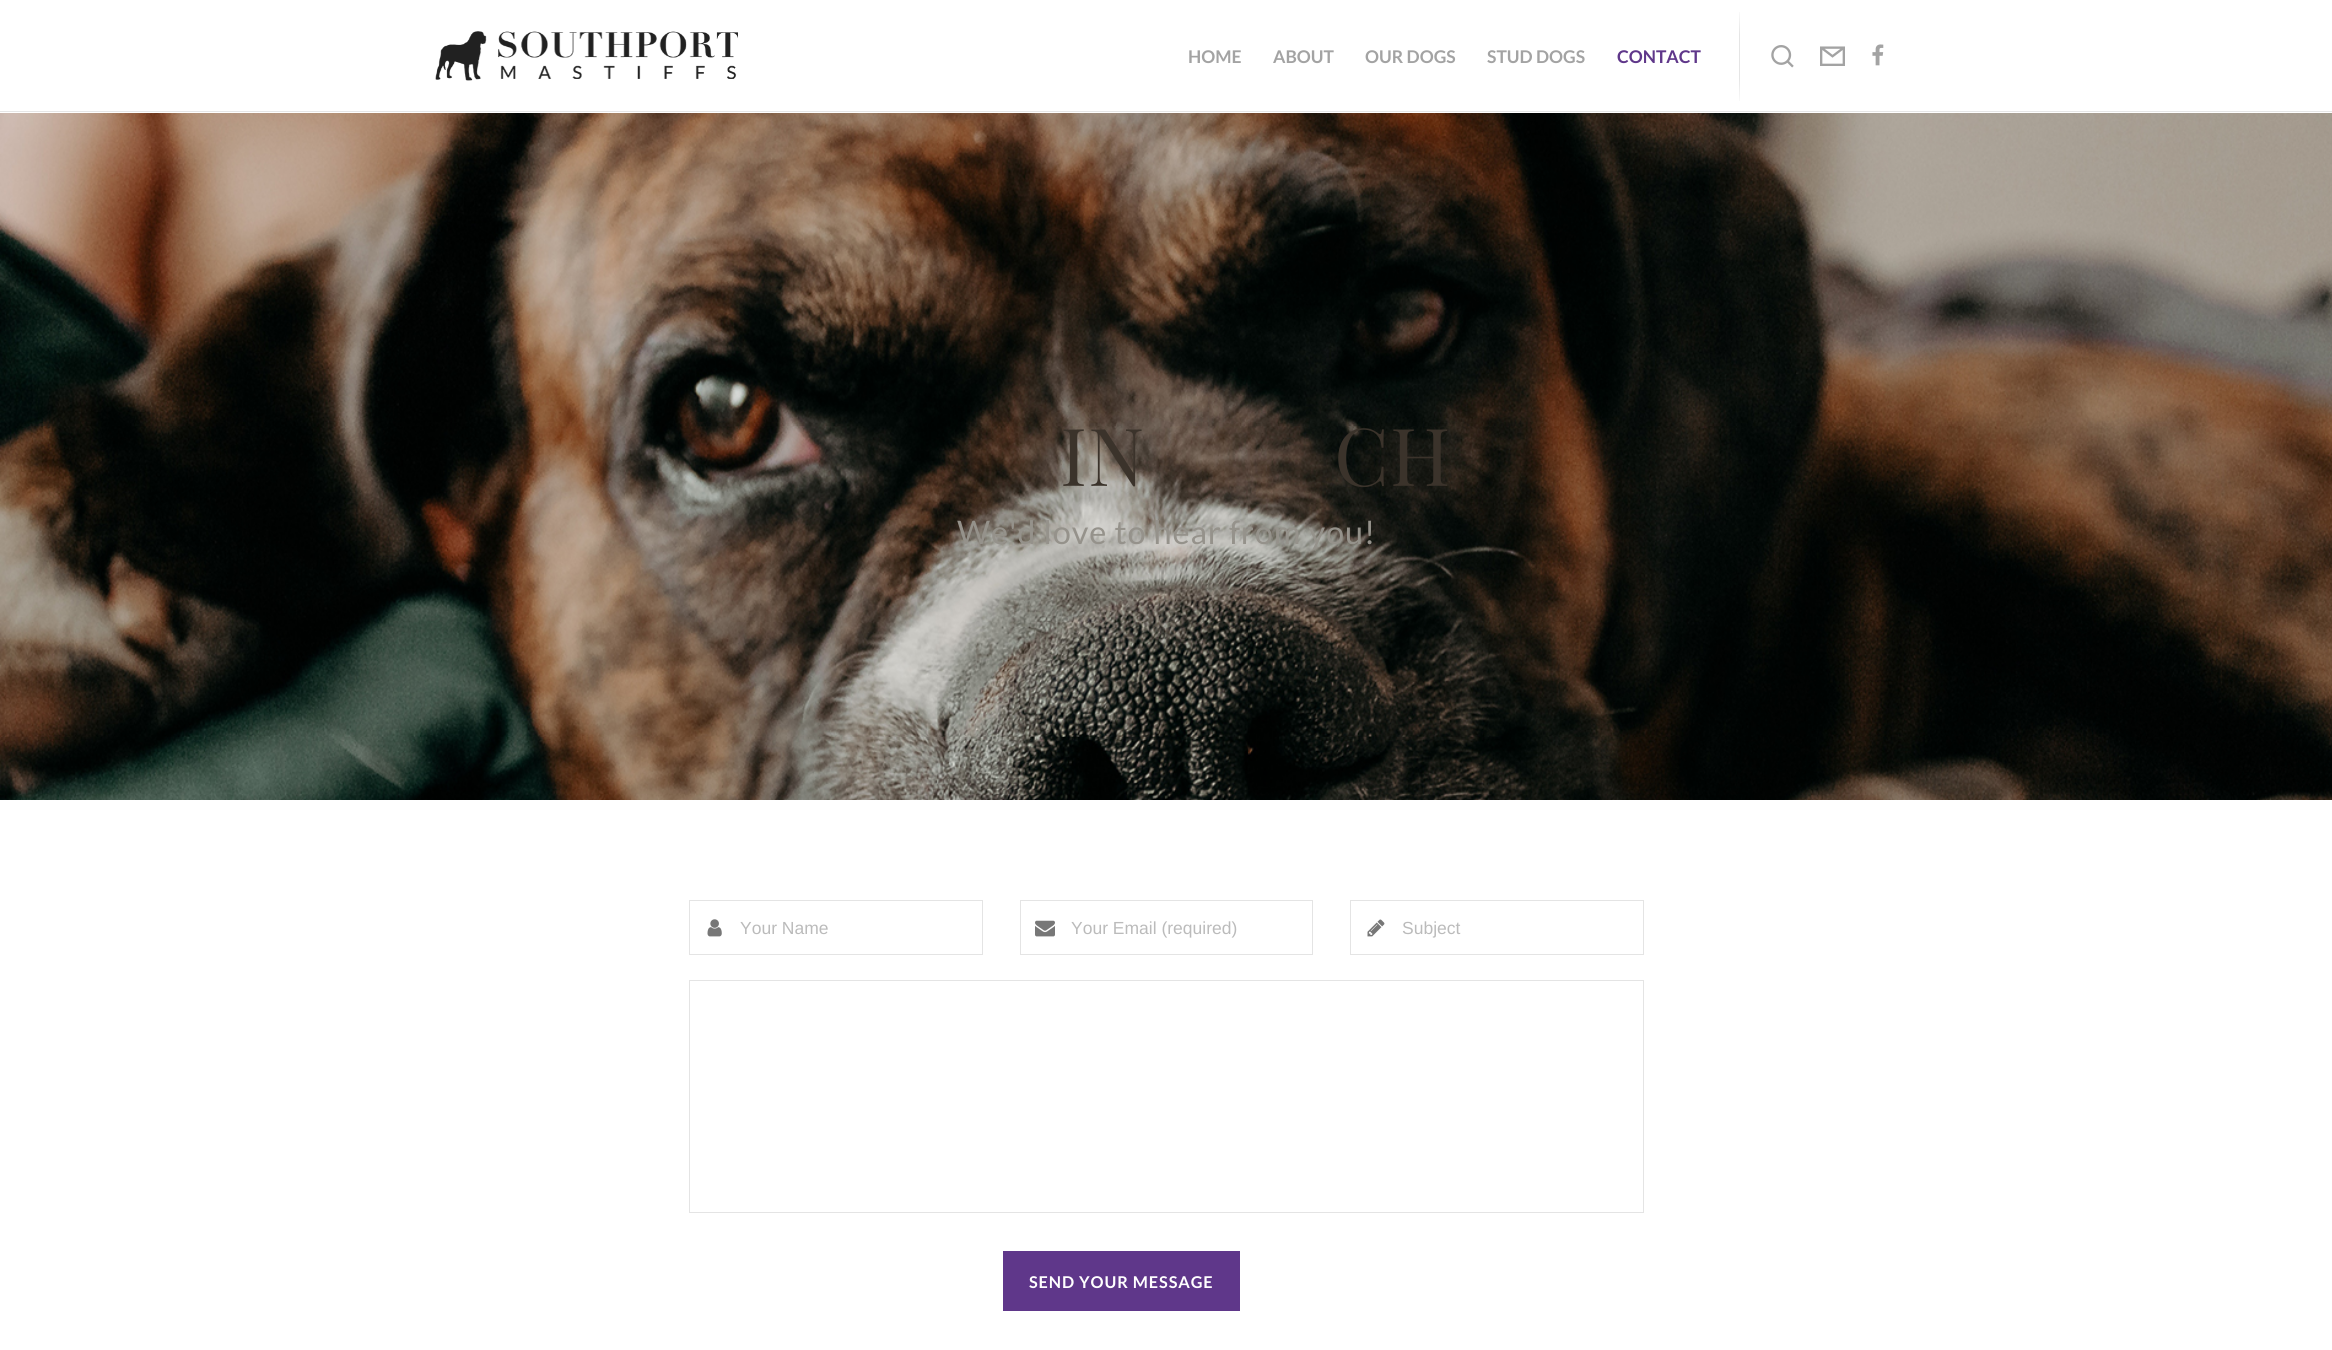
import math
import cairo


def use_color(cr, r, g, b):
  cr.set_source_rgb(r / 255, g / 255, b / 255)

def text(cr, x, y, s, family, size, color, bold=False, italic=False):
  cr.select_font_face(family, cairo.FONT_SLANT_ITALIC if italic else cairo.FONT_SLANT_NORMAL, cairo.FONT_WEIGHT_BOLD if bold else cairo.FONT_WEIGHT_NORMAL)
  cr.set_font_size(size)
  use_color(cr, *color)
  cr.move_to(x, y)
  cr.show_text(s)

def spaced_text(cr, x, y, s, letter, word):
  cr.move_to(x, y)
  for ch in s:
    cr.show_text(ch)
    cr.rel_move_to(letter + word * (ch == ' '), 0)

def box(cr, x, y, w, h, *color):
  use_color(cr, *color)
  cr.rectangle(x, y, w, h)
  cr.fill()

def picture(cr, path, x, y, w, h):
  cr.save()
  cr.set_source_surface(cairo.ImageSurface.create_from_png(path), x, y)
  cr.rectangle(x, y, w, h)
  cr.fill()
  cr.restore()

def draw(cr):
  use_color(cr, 255, 255, 255)
  cr.paint()
  box(cr, 0, 111, 2332, 1, 230, 230, 230)
  picture(cr, "img_01.png", 435, 31, 303, 50)
  gradient = cairo.LinearGradient(1739, 0, 1739, 113)
  gradient.add_color_stop_rgba(0.05, 0, 0, 0, 0)
  gradient.add_color_stop_rgba(0.3, 0, 0, 0, 0.1)
  gradient.add_color_stop_rgba(0.7, 0, 0, 0, 0.1)
  gradient.add_color_stop_rgba(0.95, 0, 0, 0, 0)
  cr.set_source(gradient)
  cr.rectangle(1739, 12, 1, 89)
  cr.fill()
  picture(cr, "img_02.png", 1771, 45, 23, 23)
  picture(cr, "img_03.png", 1820, 46, 25, 20)
  picture(cr, "img_04.png", 1872, 44, 12, 22)
  picture(cr, "img_05.png", 0, 113, 2332, 687)
  picture(cr, "img_06.png", 707, 919, 15, 18)
  cr.rectangle(689.5, 900.5, 293, 54)
  use_color(cr, 228, 228, 228)
  cr.set_line_width(1)
  cr.stroke()
  picture(cr, "img_07.png", 1035, 920, 20, 17)
  cr.rectangle(1020.5, 900.5, 292, 54)
  cr.stroke()
  picture(cr, "img_08.png", 1367, 919, 18, 18)
  cr.rectangle(1350.5, 900.5, 293, 54)
  cr.stroke()
  cr.rectangle(689.5, 980.5, 954, 232)
  cr.stroke()
  box(cr, 1003, 1251, 237, 60, 95, 55, 138)
  text(cr, 1188, 63, "HOME", "Lato", 17.5, (163, 163, 163), bold=True)
  text(cr, 1273, 63, "ABOUT", "Lato", 17.5, (163, 163, 163), bold=True)
  text(cr, 1365, 63, "OUR DOGS", "Lato", 17.5, (163, 163, 163), bold=True)
  text(cr, 1487, 63, "STUD DOGS", "Lato", 17.5, (163, 163, 163), bold=True)
  text(cr, 1617, 63, "CONTACT", "Lato", 17.5, (95, 55, 138), bold=True)
  cr.select_font_face("Playfair Display")
  cr.set_font_size(80)
  use_color(cr, 59, 51, 43)
  spaced_text(cr, 1060, 486, "IN", 1, 0)
  spaced_text(cr, 1334, 486, "CH", 1, 0)
  cr.select_font_face("Lato")
  cr.set_font_size(32.5)
  use_color(cr, 149, 146, 139)
  spaced_text(cr, 957, 544, "We'd love to hear from you!", 0.9, 0)
  text(cr, 740, 934, "Your Name", "Liberation Sans", 17.5, (187, 187, 187))
  text(cr, 1071, 934, "Your Email (required)", "Liberation Sans", 17.5, (187, 187, 187))
  text(cr, 1402, 934, "Subject", "Liberation Sans", 17.5, (187, 187, 187))
  cr.select_font_face("Lato", cairo.FONT_SLANT_NORMAL, cairo.FONT_WEIGHT_BOLD)
  cr.set_font_size(16.25)
  use_color(cr, 255, 255, 255)
  spaced_text(cr, 1029, 1288, "SEND YOUR MESSAGE", 0.9, 0)


surface = cairo.ImageSurface(cairo.FORMAT_RGB24, 2332, 1350)
cr = cairo.Context(surface)
options = cairo.FontOptions()
options.set_hint_metrics(cairo.HINT_METRICS_OFF)
options.set_hint_style(cairo.HINT_STYLE_NONE)
cr.set_font_options(options)
cr.set_miter_limit(4)
draw(cr)
surface.write_to_png("out.png")
